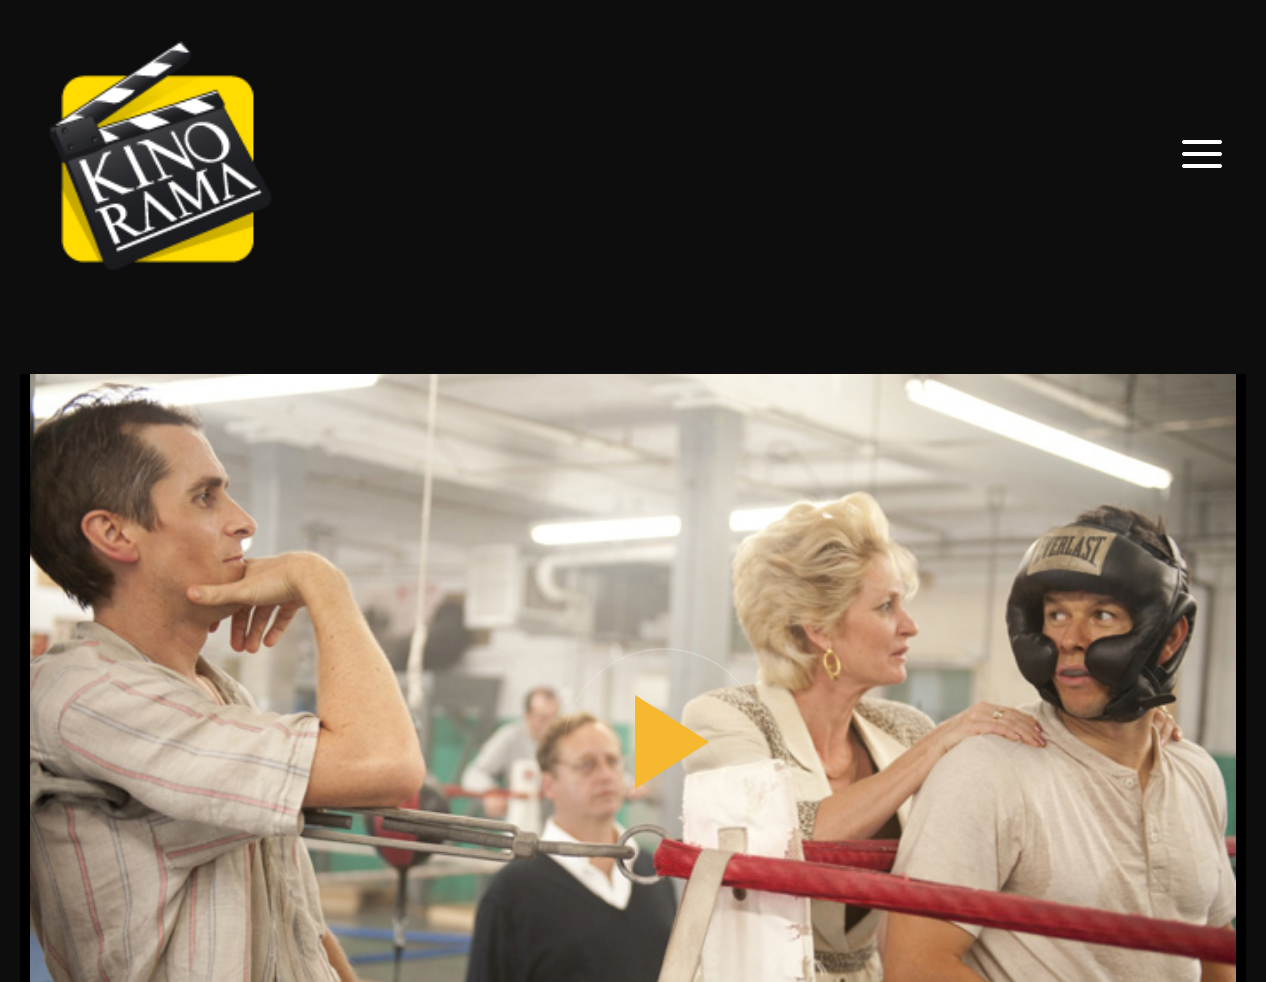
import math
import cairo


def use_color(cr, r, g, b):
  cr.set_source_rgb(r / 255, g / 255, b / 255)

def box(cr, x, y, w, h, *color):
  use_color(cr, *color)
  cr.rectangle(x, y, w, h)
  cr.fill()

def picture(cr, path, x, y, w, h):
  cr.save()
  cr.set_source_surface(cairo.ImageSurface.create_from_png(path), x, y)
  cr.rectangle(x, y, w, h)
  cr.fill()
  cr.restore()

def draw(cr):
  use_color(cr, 13, 13, 13)
  cr.paint()
  picture(cr, "img_01.png", 49, 41, 223, 229)
  cr.new_path()
  cr.move_to(1184, 142)
  cr.line_to(1220, 142)
  cr.move_to(1184, 154)
  cr.line_to(1220, 154)
  cr.move_to(1184, 166)
  cr.line_to(1220, 166)
  use_color(cr, 255, 255, 255)
  cr.set_line_width(4)
  cr.set_line_cap(cairo.LINE_CAP_ROUND)
  cr.stroke()
  box(cr, 20, 374, 1226, 608, 0, 0, 0)
  picture(cr, "img_02.png", 30, 374, 1206, 608)
  cr.set_source_rgba(1, 1, 1, 0.2)
  cr.new_path()
  cr.move_to(664, 650)
  cr.curve_to(719, 650, 763, 694, 764, 749)
  cr.curve_to(764, 729, 758, 709, 747, 692)
  cr.curve_to(736, 676, 721, 663, 703, 656)
  cr.curve_to(637, 628, 563, 677, 564, 749)
  cr.curve_to(565, 694, 609, 650, 664, 650)
  cr.close_path()
  cr.fill()
  use_color(cr, 245, 184, 46)
  cr.new_path()
  cr.move_to(635, 695)
  cr.line_to(635, 789)
  cr.line_to(709, 742)
  cr.close_path()
  cr.fill()


surface = cairo.ImageSurface(cairo.FORMAT_RGB24, 1266, 982)
cr = cairo.Context(surface)
options = cairo.FontOptions()
options.set_hint_metrics(cairo.HINT_METRICS_OFF)
options.set_hint_style(cairo.HINT_STYLE_NONE)
cr.set_font_options(options)
cr.set_miter_limit(4)
draw(cr)
surface.write_to_png("out.png")
